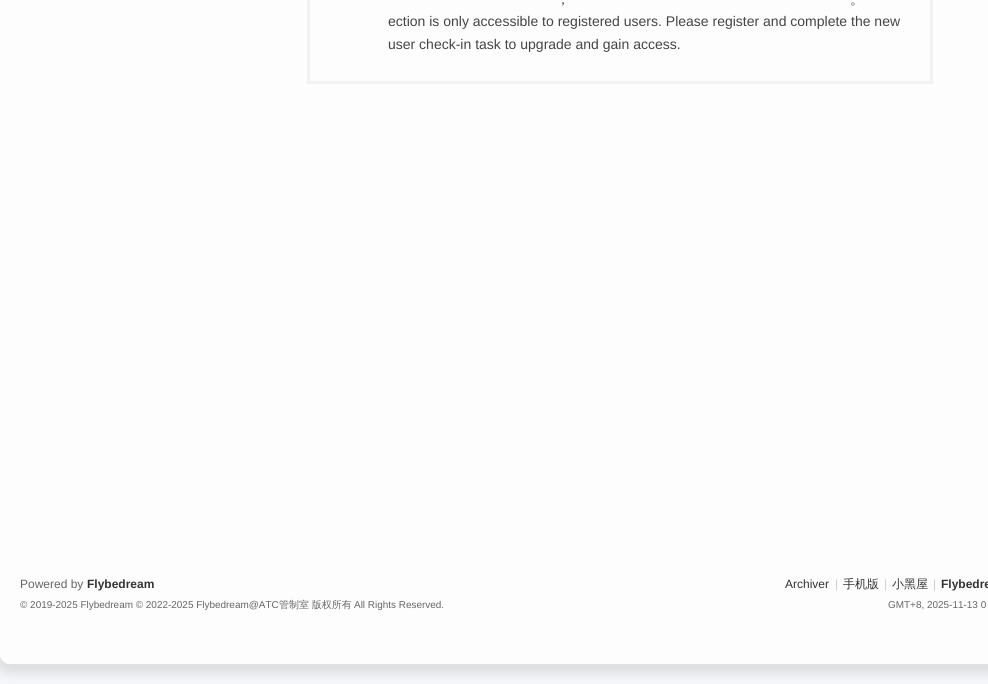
import math
import cairo


def use_color(cr, r, g, b):
  cr.set_source_rgb(r / 255, g / 255, b / 255)

def text(cr, x, y, s, family, size, color, bold=False, italic=False):
  cr.select_font_face(family, cairo.FONT_SLANT_ITALIC if italic else cairo.FONT_SLANT_NORMAL, cairo.FONT_WEIGHT_BOLD if bold else cairo.FONT_WEIGHT_NORMAL)
  cr.set_font_size(size)
  use_color(cr, *color)
  cr.move_to(x, y)
  cr.show_text(s)

def round_rect(cr, x, y, w, h, r):
  cr.new_sub_path()
  for i, (u, v) in enumerate([(x + w - r, y + h - r), (x + r, y + h - r), (x + r, y + r), (x + w - r, y + r)]):
    cr.arc(u, v, r, i * math.pi / 2, (i + 1) * math.pi / 2)
  cr.close_path()

def shadow(cr, x, y, w, h, r, blur, alpha):
  cr.push_group_with_content(cairo.CONTENT_ALPHA)
  cr.set_operator(cairo.OPERATOR_SOURCE)
  for i in range(15, -16, -2):
    e = blur * i / 6
    if min(w, h) + 2 * e > 0:
      cr.set_source_rgba(0, 0, 0, alpha * math.erfc((i - 1) / 8.5) / 2)
      round_rect(cr, x - e, y - e, w + 2 * e, h + 2 * e, max(0, min(r + e + blur * .6, min(w, h) / 2 + e)))
      cr.fill()
  cr.mask(cr.pop_group())

def draw(cr):
  use_color(cr, 245, 247, 250)
  cr.paint()
  cr.save()
  cr.set_fill_rule(cairo.FILL_RULE_EVEN_ODD)
  cr.new_path()
  cr.move_to(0, 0)
  cr.line_to(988, 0)
  cr.line_to(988, 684)
  cr.line_to(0, 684)
  cr.close_path()
  cr.move_to(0, -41)
  cr.line_to(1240, -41)
  cr.line_to(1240, 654)
  cr.curve_to(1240, 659.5, 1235.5, 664, 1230, 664)
  cr.line_to(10, 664)
  cr.curve_to(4.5, 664, 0, 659.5, 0, 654)
  cr.close_path()
  cr.clip()
  use_color(cr, 0, 0, 0)
  shadow(cr, -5, -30, 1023, 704, 15, 5, 0.1)
  cr.restore()
  cr.set_source_rgba(1, 1, 1, 0.8)
  cr.new_path()
  cr.move_to(0, -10)
  cr.line_to(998, -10)
  cr.line_to(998, 654)
  cr.curve_to(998, 659.5, 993.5, 664, 988, 664)
  cr.line_to(10, 664)
  cr.curve_to(4.5, 664, 0, 659.5, 0, 654)
  cr.close_path()
  cr.fill()
  cr.rectangle(308.5, -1.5, 623, 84)
  use_color(cr, 242, 242, 242)
  cr.set_line_width(3)
  cr.stroke()
  text(cr, 556, 4, "，", "WenQuanYi Zen Hei Medium", 14, (68, 68, 68))
  text(cr, 850, 4, "。", "WenQuanYi Zen Hei Medium", 14, (68, 68, 68))
  text(cr, 388, 26, "ection is only accessible to registered users. Please register and complete the new", "Liberation Sans", 14, (68, 68, 68))
  text(cr, 388, 49, "user check-in task to upgrade and gain access.", "Liberation Sans", 14, (68, 68, 68))
  text(cr, 20, 588, "Powered by", "Liberation Sans", 12, (102, 102, 102))
  text(cr, 87, 588, "Flybedream", "Liberation Sans", 12, (51, 51, 51), bold=True)
  text(cr, 20, 608, "© 2019-2025 Flybedream © 2022-2025 Flybedream@ATC", "Liberation Sans", 9.95, (102, 102, 102))
  text(cr, 279, 608, "管制室 版权所有", "WenQuanYi Zen Hei Medium", 9.95, (102, 102, 102))
  text(cr, 354, 608, "All Rights Reserved.", "Liberation Sans", 9.95, (102, 102, 102))
  text(cr, 785, 588, "Archiver", "Liberation Sans", 12, (51, 51, 51))
  text(cr, 835, 588, "|", "Liberation Sans", 12, (204, 204, 204))
  text(cr, 843, 588, "手机版", "WenQuanYi Zen Hei Medium", 12, (51, 51, 51))
  text(cr, 884, 588, "|", "Liberation Sans", 12, (204, 204, 204))
  text(cr, 892, 588, "小黑屋", "WenQuanYi Zen Hei Medium", 12, (51, 51, 51))
  text(cr, 933, 588, "|", "Liberation Sans", 12, (204, 204, 204))
  text(cr, 941, 588, "Flybedre", "Liberation Sans", 12, (51, 51, 51), bold=True)
  text(cr, 888, 608, "GMT+8, 2025-11-13 0", "Liberation Sans", 9.95, (102, 102, 102))


surface = cairo.ImageSurface(cairo.FORMAT_RGB24, 988, 684)
cr = cairo.Context(surface)
options = cairo.FontOptions()
options.set_hint_metrics(cairo.HINT_METRICS_OFF)
options.set_hint_style(cairo.HINT_STYLE_NONE)
cr.set_font_options(options)
cr.set_miter_limit(4)
draw(cr)
surface.write_to_png("out.png")
